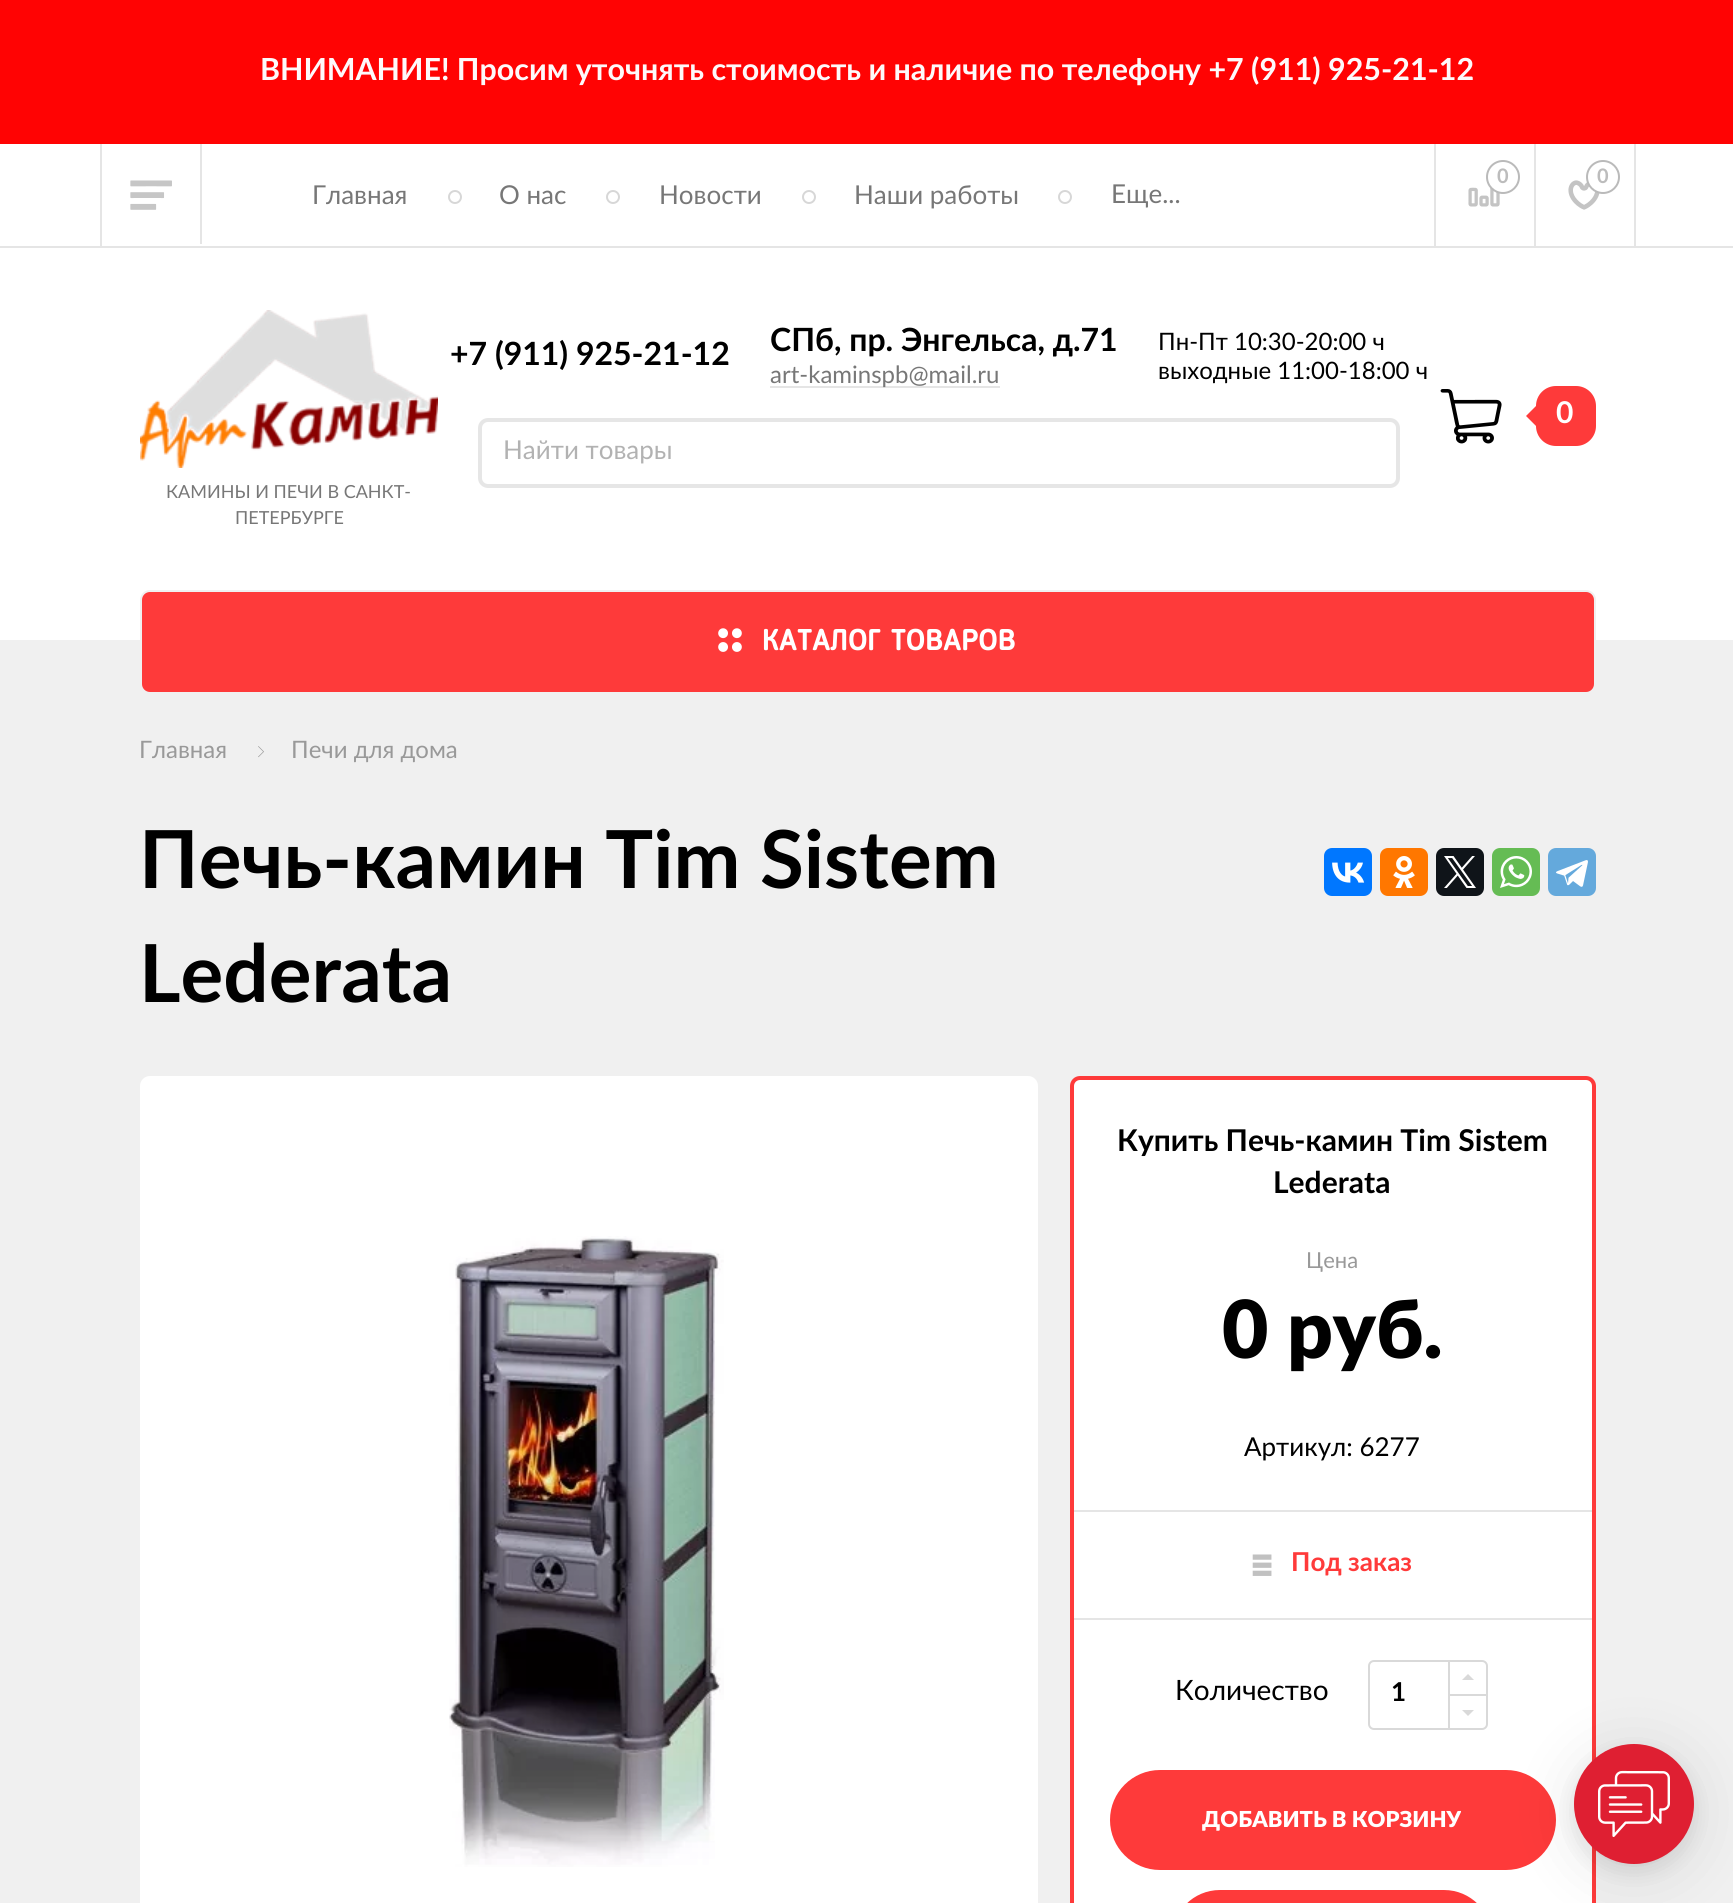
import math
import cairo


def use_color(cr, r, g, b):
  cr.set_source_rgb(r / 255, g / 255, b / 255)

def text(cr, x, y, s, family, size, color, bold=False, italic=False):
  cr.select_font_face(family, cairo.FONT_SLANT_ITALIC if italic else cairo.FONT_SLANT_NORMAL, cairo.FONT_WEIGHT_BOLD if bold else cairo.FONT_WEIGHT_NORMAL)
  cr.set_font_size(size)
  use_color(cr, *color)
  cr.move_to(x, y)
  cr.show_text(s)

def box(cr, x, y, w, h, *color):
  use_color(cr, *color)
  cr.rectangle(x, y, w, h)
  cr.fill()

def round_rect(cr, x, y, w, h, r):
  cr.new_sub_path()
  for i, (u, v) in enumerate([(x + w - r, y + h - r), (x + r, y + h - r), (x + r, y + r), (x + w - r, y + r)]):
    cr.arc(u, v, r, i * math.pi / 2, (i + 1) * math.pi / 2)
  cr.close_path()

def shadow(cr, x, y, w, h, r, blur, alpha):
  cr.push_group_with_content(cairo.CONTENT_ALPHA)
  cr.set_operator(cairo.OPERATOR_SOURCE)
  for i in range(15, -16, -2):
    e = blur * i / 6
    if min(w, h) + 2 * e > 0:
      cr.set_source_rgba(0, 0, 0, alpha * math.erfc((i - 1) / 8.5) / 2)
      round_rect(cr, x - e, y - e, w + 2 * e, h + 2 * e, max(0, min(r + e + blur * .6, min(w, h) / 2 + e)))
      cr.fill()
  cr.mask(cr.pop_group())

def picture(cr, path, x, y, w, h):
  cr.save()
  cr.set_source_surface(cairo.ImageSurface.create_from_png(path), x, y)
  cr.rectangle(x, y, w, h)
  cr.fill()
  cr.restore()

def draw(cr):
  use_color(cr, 240, 240, 240)
  cr.paint()
  box(cr, 0, 0, 1733, 144, 255, 3, 3)
  box(cr, 0, 144, 1733, 102, 255, 255, 255)
  box(cr, 0, 246, 1733, 2, 229, 229, 229)
  box(cr, 1634, 144, 2, 102, 229, 229, 229)
  box(cr, 100, 144, 2, 102, 229, 229, 229)
  box(cr, 200, 144, 2, 100, 229, 229, 229)
  picture(cr, "img_01.png", 130, 180, 42, 30)
  box(cr, 1434, 144, 2, 102, 229, 229, 229)
  picture(cr, "img_02.png", 1468, 187, 32, 20)
  use_color(cr, 255, 255, 255)
  cr.arc(1503, 177, 16, 0, 2 * math.pi)
  cr.fill_preserve()
  use_color(cr, 186, 186, 186)
  cr.stroke()
  box(cr, 1534, 144, 2, 102, 229, 229, 229)
  picture(cr, "img_03.png", 1568, 180, 32, 30)
  use_color(cr, 255, 255, 255)
  cr.arc(1603, 177, 16, 0, 2 * math.pi)
  cr.fill_preserve()
  use_color(cr, 186, 186, 186)
  cr.stroke()
  cr.arc(455, 197, 6, 0, 2 * math.pi)
  use_color(cr, 215, 215, 215)
  cr.stroke()
  cr.arc(613, 197, 6, 0, 2 * math.pi)
  cr.stroke()
  cr.arc(809, 197, 6, 0, 2 * math.pi)
  cr.stroke()
  cr.arc(1065, 197, 6, 0, 2 * math.pi)
  cr.stroke()
  box(cr, 0, 248, 1733, 392, 255, 255, 255)
  box(cr, 770, 386, 230, 2, 229, 229, 229)
  round_rect(cr, 480, 420, 918, 66, 8)
  use_color(cr, 230, 230, 230)
  cr.set_line_width(4)
  cr.stroke()
  picture(cr, "img_04.png", 1440, 389, 62, 55)
  use_color(cr, 254, 58, 58)
  round_rect(cr, 1536, 386, 60, 60, 20)
  cr.fill()
  cr.new_path()
  cr.move_to(1540, 402)
  cr.line_to(1540, 430)
  cr.line_to(1526, 416)
  cr.close_path()
  cr.fill()
  picture(cr, "img_05.png", 140, 310, 298, 158)
  round_rect(cr, 141, 591, 1454, 102, 9)
  cr.fill_preserve()
  use_color(cr, 240, 240, 240)
  cr.set_line_width(2)
  cr.stroke()
  picture(cr, "img_06.png", 718, 628, 24, 24)
  picture(cr, "img_07.png", 258, 746, 6, 12)
  use_color(cr, 0, 119, 255)
  round_rect(cr, 1324, 848, 48, 48, 8)
  cr.fill()
  picture(cr, "img_08.png", 1332, 862, 33, 21)
  use_color(cr, 255, 119, 0)
  round_rect(cr, 1380, 848, 48, 48, 8)
  cr.fill()
  picture(cr, "img_09.png", 1393, 856, 22, 32)
  use_color(cr, 15, 20, 25)
  round_rect(cr, 1436, 848, 48, 48, 8)
  cr.fill()
  picture(cr, "img_10.png", 1444, 856, 32, 32)
  use_color(cr, 101, 188, 84)
  round_rect(cr, 1492, 848, 48, 48, 8)
  cr.fill()
  picture(cr, "img_11.png", 1500, 856, 32, 32)
  use_color(cr, 100, 169, 220)
  round_rect(cr, 1548, 848, 48, 48, 8)
  cr.fill()
  picture(cr, "img_12.png", 1556, 860, 32, 27)
  use_color(cr, 255, 255, 255)
  round_rect(cr, 140, 1076, 898, 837, 10)
  cr.fill()
  picture(cr, "img_13.png", 449, 1236, 275, 631)
  round_rect(cr, 1072, 1078, 522, 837, 8)
  cr.fill_preserve()
  use_color(cr, 254, 58, 58)
  cr.set_line_width(4)
  cr.stroke()
  box(cr, 1074, 1510, 518, 2, 229, 229, 229)
  box(cr, 1074, 1618, 518, 2, 229, 229, 229)
  picture(cr, "img_14.png", 1252, 1554, 20, 22)
  round_rect(cr, 1369, 1661, 118, 68, 5)
  use_color(cr, 217, 217, 217)
  cr.set_line_width(2)
  cr.stroke()
  box(cr, 1448, 1660, 2, 70, 217, 217, 217)
  box(cr, 1450, 1694, 38, 2, 217, 217, 217)
  cr.new_path()
  cr.move_to(1474, 1680)
  cr.line_to(1462, 1680)
  cr.line_to(1468, 1674)
  cr.close_path()
  cr.move_to(1462, 1710)
  cr.line_to(1474, 1710)
  cr.line_to(1468, 1716)
  cr.close_path()
  cr.fill()
  use_color(cr, 254, 58, 58)
  round_rect(cr, 1110, 1770, 446, 100, 50)
  cr.fill()
  round_rect(cr, 1175, 1893, 314, 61, 45)
  cr.fill_preserve()
  cr.set_line_width(6)
  cr.stroke()
  use_color(cr, 0, 0, 0)
  shadow(cr, 1574, 1752, 120, 120, 60, 30, 0.1)
  shadow(cr, 1574, 1752, 120, 120, 60, 10, 0.08)
  use_color(cr, 223, 31, 50)
  cr.arc(1634, 1804, 60, 0, 2 * math.pi)
  cr.fill()
  picture(cr, "img_15.png", 1598, 1770, 72, 67)
  text(cr, 260, 80, "ВНИМАНИЕ! Просим уточнять стоимость и наличие по телефону +7 (911) 925-21-12", "Lato", 30.4, (254, 249, 250), bold=True)
  text(cr, 1497, 183, "0", "Lato", 20, (188, 188, 188), bold=True)
  text(cr, 1597, 183, "0", "Lato", 20, (188, 188, 188), bold=True)
  text(cr, 312, 204, "Главная", "Lato", 26, (119, 119, 119))
  text(cr, 499, 204, "О нас", "Lato", 26, (119, 119, 119))
  text(cr, 659, 204, "Новости", "Lato", 26, (119, 119, 119))
  text(cr, 854, 204, "Наши работы", "Lato", 26, (119, 119, 119))
  text(cr, 1111, 203, "Еще...", "Lato", 26, (119, 119, 119))
  text(cr, 450, 365, "+7 (911) 925-21-12", "Lato", 32, (0, 0, 0), bold=True)
  text(cr, 770, 351, "СПб, пр. Энгельса, д.71", "Lato", 32, (0, 0, 0), bold=True)
  text(cr, 770, 383, "art-kaminspb@mail.ru", "Lato", 24, (119, 119, 119))
  text(cr, 1158, 350, "Пн-Пт 10:30-20:00 ч", "Lato", 24, (0, 0, 0))
  text(cr, 1158, 379, "выходные 11:00-18:00 ч", "Lato", 24, (0, 0, 0))
  text(cr, 503, 459, "Найти товары", "Lato", 26, (178, 178, 178))
  text(cr, 1556, 423, "0", "Lato", 30, (255, 255, 255), bold=True)
  text(cr, 166, 498, "КАМИНЫ И ПЕЧИ В САНКТ-", "Lato", 18, (119, 119, 119))
  text(cr, 235, 524, "ПЕТЕРБУРГЕ", "Lato", 18, (119, 119, 119))
  text(cr, 762, 650, "КАТАЛОГ ТОВАРОВ", "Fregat", 30, (255, 255, 255), bold=True)
  text(cr, 139, 758, "Главная", "Lato", 24, (153, 153, 153))
  text(cr, 291, 758, "Печи для дома", "Lato", 24, (153, 153, 153))
  text(cr, 139, 888, "Печь-камин Tim Sistem", "Lato", 80, (0, 0, 0), bold=True)
  text(cr, 139, 1002, "Lederata", "Lato", 80, (0, 0, 0), bold=True)
  text(cr, 1117, 1151, "Купить Печь-камин Tim Sistem", "Lato", 30, (0, 0, 0), bold=True)
  text(cr, 1273, 1193, "Lederata", "Lato", 30, (0, 0, 0), bold=True)
  text(cr, 1306, 1268, "Цена", "Lato", 22, (153, 153, 153))
  text(cr, 1222, 1358, "0 руб.", "Lato Black", 80, (0, 0, 0))
  text(cr, 1244, 1456, "Артикул: 6277", "Lato", 26, (0, 0, 0))
  text(cr, 1291, 1571, "Под заказ", "Lato", 26, (255, 58, 58), bold=True)
  text(cr, 1175, 1700, "Количество", "Lato", 28, (0, 0, 0))
  text(cr, 1391, 1701, "1", "Lato", 26, (0, 0, 0), bold=True)
  text(cr, 1202, 1827, "ДОБАВИТЬ В КОРЗИНУ", "Lato Black", 22, (255, 255, 255))


surface = cairo.ImageSurface(cairo.FORMAT_RGB24, 1733, 1903)
cr = cairo.Context(surface)
options = cairo.FontOptions()
options.set_hint_metrics(cairo.HINT_METRICS_OFF)
options.set_hint_style(cairo.HINT_STYLE_NONE)
cr.set_font_options(options)
cr.set_miter_limit(4)
draw(cr)
surface.write_to_png("out.png")
